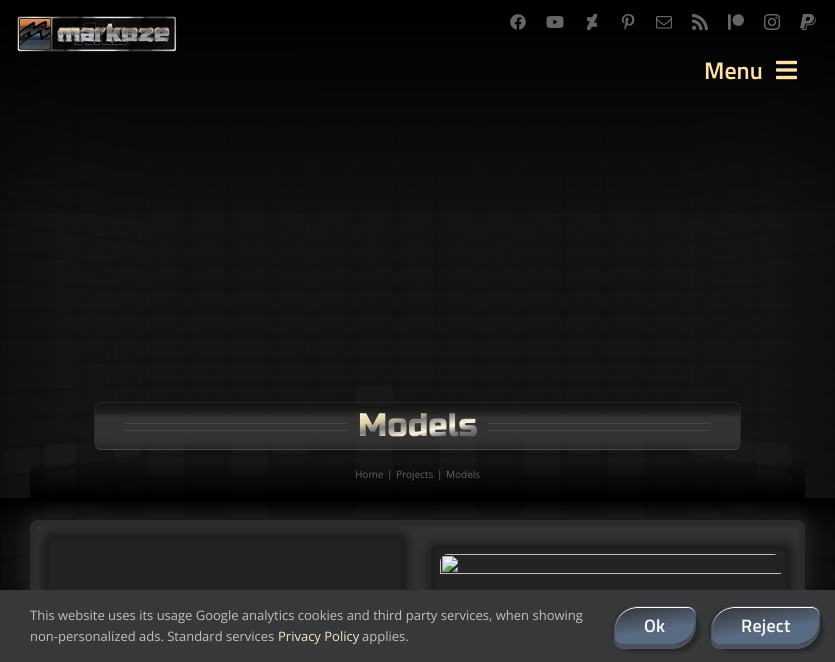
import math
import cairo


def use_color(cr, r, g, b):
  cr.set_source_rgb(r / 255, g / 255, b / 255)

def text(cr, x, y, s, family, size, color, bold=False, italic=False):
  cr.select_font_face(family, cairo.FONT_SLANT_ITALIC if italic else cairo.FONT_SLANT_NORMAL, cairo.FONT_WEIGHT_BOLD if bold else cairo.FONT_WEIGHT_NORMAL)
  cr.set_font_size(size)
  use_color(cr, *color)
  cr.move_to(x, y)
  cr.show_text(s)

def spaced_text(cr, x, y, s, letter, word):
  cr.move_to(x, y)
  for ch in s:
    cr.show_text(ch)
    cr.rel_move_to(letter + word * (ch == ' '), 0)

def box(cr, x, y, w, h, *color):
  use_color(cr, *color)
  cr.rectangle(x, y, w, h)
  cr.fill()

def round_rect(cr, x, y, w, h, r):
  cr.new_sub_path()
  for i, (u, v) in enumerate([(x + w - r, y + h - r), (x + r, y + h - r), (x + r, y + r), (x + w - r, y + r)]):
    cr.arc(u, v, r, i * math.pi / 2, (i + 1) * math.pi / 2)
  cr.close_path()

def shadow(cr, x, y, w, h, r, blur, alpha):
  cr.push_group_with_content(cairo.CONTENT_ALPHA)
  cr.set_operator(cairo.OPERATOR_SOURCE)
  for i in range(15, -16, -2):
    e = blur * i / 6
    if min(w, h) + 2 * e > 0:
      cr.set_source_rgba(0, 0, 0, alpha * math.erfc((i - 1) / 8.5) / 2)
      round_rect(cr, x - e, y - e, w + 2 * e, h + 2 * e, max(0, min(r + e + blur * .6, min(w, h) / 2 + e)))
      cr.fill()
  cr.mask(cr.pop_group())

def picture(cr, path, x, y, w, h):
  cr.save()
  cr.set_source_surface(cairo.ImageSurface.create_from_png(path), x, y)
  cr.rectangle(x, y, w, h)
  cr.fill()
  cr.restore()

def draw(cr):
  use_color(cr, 255, 255, 255)
  cr.paint()
  picture(cr, "img_01.png", 0, 24, 835, 566)
  gradient = cairo.LinearGradient(418, 0, 418, 116)
  gradient.add_color_stop_rgba(0.2, 0, 0, 0, 1)
  gradient.add_color_stop_rgba(1, 0, 0, 0, 0)
  cr.set_source(gradient)
  cr.rectangle(0, 0, 835, 24)
  cr.fill()
  cr.set_source_rgba(0.067, 0.067, 0.067, 0.53)
  cr.rectangle(0, 24, 835, 474)
  cr.fill()
  gradient = cairo.LinearGradient(417, 0, 418, 498)
  gradient.add_color_stop_rgba(0, 0, 0, 0, 1)
  gradient.add_color_stop_rgba(0.49, 0, 0, 0, 0)
  cr.set_source(gradient)
  cr.rectangle(0, 24, 835, 189)
  cr.fill()
  picture(cr, "img_02.png", 17, 16, 160, 36)
  picture(cr, "img_03.png", 510, 14, 16, 16)
  picture(cr, "img_04.png", 546, 16, 18, 12)
  picture(cr, "img_05.png", 587, 14, 10, 16)
  picture(cr, "img_06.png", 621, 14, 14, 16)
  picture(cr, "img_07.png", 656, 16, 16, 13)
  picture(cr, "img_08.png", 692, 14, 16, 16)
  picture(cr, "img_09.png", 728, 14, 16, 16)
  picture(cr, "img_10.png", 764, 14, 16, 16)
  picture(cr, "img_11.png", 800, 14, 16, 16)
  picture(cr, "img_12.png", 776, 60, 21, 20)
  cr.save()
  round_rect(cr, 94, 402, 647, 48, 8)
  cr.clip()
  gradient = cairo.LinearGradient(418, 403, 418, 449)
  gradient.add_color_stop_rgba(0, 0.067, 0.067, 0.067, 0.3)
  gradient.add_color_stop_rgba(0.32, 0.2, 0.2, 0.2, 1)
  gradient.add_color_stop_rgba(0.72, 0.2, 0.2, 0.2, 1)
  gradient.add_color_stop_rgba(1, 0.278, 0.278, 0.278, 0.3)
  cr.set_source(gradient)
  cr.rectangle(94, 403, 647, 46)
  cr.fill()
  cr.restore()
  cr.new_path()
  cr.move_to(738.5, 447.5)
  cr.curve_to(737, 448.5, 735, 449.5, 733, 449.5)
  cr.line_to(102, 449.5)
  cr.curve_to(100, 449.5, 98, 448.5, 96.5, 447.5)
  use_color(cr, 71, 71, 71)
  cr.set_line_width(1)
  cr.stroke()
  cr.new_path()
  cr.move_to(96.5, 447.5)
  cr.curve_to(95.5, 446, 94.5, 444, 94.5, 442)
  cr.line_to(94.5, 410)
  cr.curve_to(94.5, 408, 95.5, 406, 96.5, 404.5)
  cr.curve_to(98, 403.5, 100, 402.5, 102, 402.5)
  cr.line_to(733, 402.5)
  cr.curve_to(735, 402.5, 737, 403.5, 738.5, 404.5)
  cr.curve_to(739.5, 406, 740.5, 408, 740.5, 410)
  cr.line_to(740.5, 442)
  cr.curve_to(740.5, 444, 739.5, 446, 738.5, 447.5)
  use_color(cr, 40, 40, 40)
  cr.stroke()
  box(cr, 125, 423, 222, 1, 71, 71, 71)
  box(cr, 125, 430, 222, 1, 71, 71, 71)
  box(cr, 488, 423, 222, 1, 71, 71, 71)
  box(cr, 488, 430, 222, 1, 71, 71, 71)
  gradient = cairo.LinearGradient(418, 458, 418, 498)
  gradient.add_color_stop_rgba(0, 0, 0, 0, 0)
  gradient.add_color_stop_rgba(1, 0, 0, 0, 1)
  cr.set_source(gradient)
  cr.rectangle(30, 462, 775, 36)
  cr.fill()
  use_color(cr, 28, 28, 28)
  shadow(cr, 22, 512, 791, 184, 16, 6, 0.79)
  use_color(cr, 50, 50, 50)
  round_rect(cr, 30, 520, 775, 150, 8)
  cr.fill()
  round_rect(cr, 33, 523, 769, 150, 5)
  cr.set_source_rgba(0.008, 0.008, 0.008, 0.15)
  cr.set_line_width(6)
  cr.stroke()
  cr.save()
  round_rect(cr, 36, 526, 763, 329, 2)
  cr.clip()
  use_color(cr, 17, 17, 17)
  shadow(cr, 39, 529, 372, 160, 13, 4.5, 0.46)
  cr.restore()
  round_rect(cr, 47, 537, 356, 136, 5)
  use_color(cr, 32, 32, 32)
  cr.stroke()
  cr.save()
  round_rect(cr, 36, 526, 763, 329, 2)
  cr.clip()
  use_color(cr, 17, 17, 17)
  shadow(cr, 425, 540, 371, 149, 13, 4.5, 0.46)
  cr.restore()
  round_rect(cr, 433, 548, 355, 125, 5)
  cr.stroke()
  picture(cr, "img_13.png", 440, 554, 341, 20)
  box(cr, 0, 590, 835, 72, 54, 56, 57)
  cr.save()
  cr.set_fill_rule(cairo.FILL_RULE_EVEN_ODD)
  cr.new_path()
  cr.move_to(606, 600)
  cr.line_to(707, 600)
  cr.line_to(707, 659)
  cr.line_to(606, 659)
  cr.close_path()
  cr.move_to(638, 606)
  cr.line_to(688, 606)
  cr.curve_to(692.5, 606, 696, 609.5, 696, 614)
  cr.line_to(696, 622)
  cr.curve_to(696, 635.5, 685.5, 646, 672, 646)
  cr.line_to(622, 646)
  cr.curve_to(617.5, 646, 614, 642.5, 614, 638)
  cr.line_to(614, 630)
  cr.curve_to(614, 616.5, 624.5, 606, 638, 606)
  cr.close_path()
  cr.clip()
  use_color(cr, 0, 0, 0)
  shadow(cr, 613, 607, 87, 45, 27, 2, 0.3)
  cr.restore()
  use_color(cr, 78, 84, 94)
  cr.new_path()
  cr.move_to(614, 638)
  cr.line_to(614, 641)
  cr.curve_to(614, 645, 618, 649, 622, 649)
  cr.line_to(672, 649)
  cr.curve_to(685, 649, 696, 638, 696, 625)
  cr.line_to(696, 622)
  cr.curve_to(696, 635, 685, 646, 672, 646)
  cr.line_to(622, 646)
  cr.curve_to(618, 646, 614, 642, 614, 638)
  cr.close_path()
  cr.fill()
  gradient = cairo.LinearGradient(651, 601, 659, 650)
  gradient.add_color_stop_rgba(0, 0.2, 0.2, 0.2, 1)
  gradient.add_color_stop_rgba(0.61, 0.349, 0.416, 0.514, 1)
  cr.set_source(gradient)
  cr.new_path()
  cr.move_to(638, 607)
  cr.line_to(688, 607)
  cr.curve_to(692, 607, 695, 610, 695, 614)
  cr.line_to(695, 622)
  cr.curve_to(695, 634, 685, 644, 672, 644)
  cr.line_to(622, 644)
  cr.curve_to(618, 644, 615, 641, 615, 638)
  cr.line_to(615, 630)
  cr.curve_to(615, 617, 625, 607, 638, 607)
  cr.close_path()
  cr.fill()
  use_color(cr, 255, 255, 255)
  cr.new_path()
  cr.move_to(638, 608)
  cr.line_to(688, 608)
  cr.curve_to(692, 608, 695, 611, 695, 615)
  cr.line_to(695, 614)
  cr.curve_to(695, 610, 692, 607, 688, 607)
  cr.line_to(638, 607)
  cr.curve_to(625, 607, 615, 617, 615, 630)
  cr.line_to(615, 631)
  cr.curve_to(615, 618, 625, 608, 638, 608)
  cr.close_path()
  cr.fill()
  cr.new_path()
  cr.move_to(638, 606.5)
  cr.line_to(688, 606.5)
  cr.curve_to(692, 606.5, 695.5, 610, 695.5, 614)
  cr.line_to(695.5, 622)
  cr.curve_to(695.5, 635, 685, 645.5, 672, 645.5)
  cr.line_to(622, 645.5)
  cr.curve_to(618, 645.5, 614.5, 642, 614.5, 638)
  cr.line_to(614.5, 630)
  cr.curve_to(614.5, 617, 625, 606.5, 638, 606.5)
  cr.close_path()
  use_color(cr, 78, 84, 94)
  cr.set_line_width(1)
  cr.stroke()
  box(cr, 618, 644, 66, 1, 78, 84, 94)
  cr.save()
  cr.set_fill_rule(cairo.FILL_RULE_EVEN_ODD)
  cr.new_path()
  cr.move_to(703, 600)
  cr.line_to(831, 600)
  cr.line_to(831, 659)
  cr.line_to(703, 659)
  cr.close_path()
  cr.move_to(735, 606)
  cr.line_to(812, 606)
  cr.curve_to(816.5, 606, 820, 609.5, 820, 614)
  cr.line_to(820, 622)
  cr.curve_to(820, 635.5, 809.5, 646, 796, 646)
  cr.line_to(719, 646)
  cr.curve_to(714.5, 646, 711, 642.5, 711, 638)
  cr.line_to(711, 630)
  cr.curve_to(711, 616.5, 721.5, 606, 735, 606)
  cr.close_path()
  cr.clip()
  use_color(cr, 0, 0, 0)
  shadow(cr, 710, 607, 114, 45, 27, 2, 0.3)
  cr.restore()
  cr.new_path()
  cr.move_to(711, 638)
  cr.line_to(711, 641)
  cr.curve_to(711, 645, 715, 649, 719, 649)
  cr.line_to(796, 649)
  cr.curve_to(809, 649, 820, 638, 820, 625)
  cr.line_to(820, 622)
  cr.curve_to(820, 635, 809, 646, 796, 646)
  cr.line_to(719, 646)
  cr.curve_to(715, 646, 711, 642, 711, 638)
  cr.close_path()
  cr.fill()
  gradient = cairo.LinearGradient(761, 598, 770, 653)
  gradient.add_color_stop_rgba(0, 0.2, 0.2, 0.2, 1)
  gradient.add_color_stop_rgba(0.61, 0.349, 0.416, 0.514, 1)
  cr.set_source(gradient)
  cr.new_path()
  cr.move_to(735, 607)
  cr.line_to(812, 607)
  cr.curve_to(816, 607, 819, 610, 819, 614)
  cr.line_to(819, 622)
  cr.curve_to(819, 634, 809, 644, 796, 644)
  cr.line_to(719, 644)
  cr.curve_to(715, 644, 712, 641, 712, 638)
  cr.line_to(712, 630)
  cr.curve_to(712, 617, 722, 607, 735, 607)
  cr.close_path()
  cr.fill()
  use_color(cr, 255, 255, 255)
  cr.new_path()
  cr.move_to(735, 608)
  cr.line_to(812, 608)
  cr.curve_to(816, 608, 819, 611, 819, 615)
  cr.line_to(819, 614)
  cr.curve_to(819, 610, 816, 607, 812, 607)
  cr.line_to(735, 607)
  cr.curve_to(722, 607, 712, 617, 712, 630)
  cr.line_to(712, 631)
  cr.curve_to(712, 618, 722, 608, 735, 608)
  cr.close_path()
  cr.fill()
  cr.new_path()
  cr.move_to(735, 606.5)
  cr.line_to(812, 606.5)
  cr.curve_to(816, 606.5, 819.5, 610, 819.5, 614)
  cr.line_to(819.5, 622)
  cr.curve_to(819.5, 635, 809, 645.5, 796, 645.5)
  cr.line_to(719, 645.5)
  cr.curve_to(715, 645.5, 711.5, 642, 711.5, 638)
  cr.line_to(711.5, 630)
  cr.curve_to(711.5, 617, 722, 606.5, 735, 606.5)
  cr.close_path()
  use_color(cr, 78, 84, 94)
  cr.stroke()
  box(cr, 715, 644, 93, 1, 78, 84, 94)
  text(cr, 704, 79, "Menu", "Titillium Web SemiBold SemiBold", 24, (255, 226, 168))
  cr.select_font_face("Russo One")
  cr.set_font_size(32.5)
  gradient = cairo.LinearGradient(425, 460, 410, 392)
  gradient.add_color_stop_rgba(0, 1, 0.996, 0.988, 1)
  gradient.add_color_stop_rgba(0.1, 0.922, 0.922, 0.922, 1)
  gradient.add_color_stop_rgba(0.2, 0.357, 0.357, 0.357, 1)
  gradient.add_color_stop_rgba(0.3, 0.522, 0.522, 0.522, 1)
  gradient.add_color_stop_rgba(0.4, 1, 0.969, 0.878, 1)
  gradient.add_color_stop_rgba(0.58, 0.498, 0.482, 0.475, 1)
  gradient.add_color_stop_rgba(0.7, 0.878, 0.824, 0.655, 1)
  gradient.add_color_stop_rgba(0.9, 1, 0.969, 0.878, 1)
  cr.set_source(gradient)
  cr.move_to(358, 436)
  cr.show_text("Models")
  text(cr, 355, 478, "Home", "Open Sans", 10, (96, 96, 96))
  text(cr, 387, 478, "|", "Open Sans", 10, (96, 96, 96))
  text(cr, 396, 478, "Projects", "Open Sans", 10, (96, 96, 96))
  text(cr, 437, 478, "|", "Open Sans", 10, (96, 96, 96))
  text(cr, 446, 478, "Models", "Open Sans", 10, (96, 96, 96))
  text(cr, 30, 620, "This website uses its usage Google analytics cookies and third party services, when showing", "Open Sans", 13, (191, 191, 191))
  text(cr, 30, 641, "non-personalized ads. Standard services", "Open Sans", 13, (191, 191, 191))
  text(cr, 278, 641, "Privacy Policy", "Open Sans", 13, (242, 232, 200))
  text(cr, 362, 641, "applies.", "Open Sans", 13, (191, 191, 191))
  cr.select_font_face("Titillium Web SemiBold SemiBold")
  cr.set_font_size(18)
  use_color(cr, 246, 246, 246)
  spaced_text(cr, 644, 632, "Ok", 0.25, 0)
  spaced_text(cr, 741, 632, "Reject", 0.25, 0)


surface = cairo.ImageSurface(cairo.FORMAT_RGB24, 835, 662)
cr = cairo.Context(surface)
options = cairo.FontOptions()
options.set_hint_metrics(cairo.HINT_METRICS_OFF)
options.set_hint_style(cairo.HINT_STYLE_NONE)
cr.set_font_options(options)
cr.set_miter_limit(4)
draw(cr)
surface.write_to_png("out.png")
